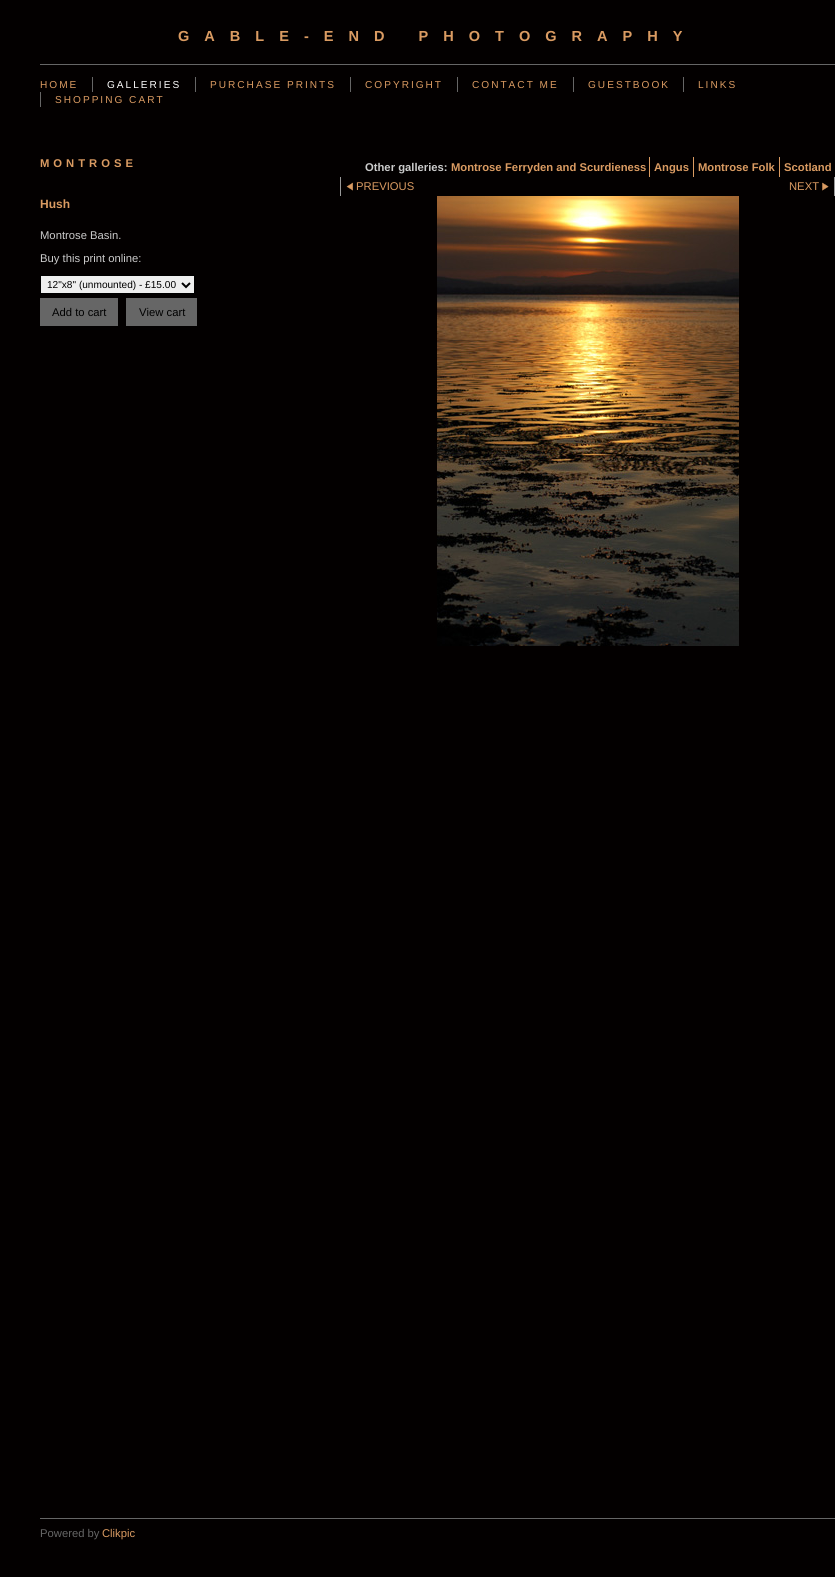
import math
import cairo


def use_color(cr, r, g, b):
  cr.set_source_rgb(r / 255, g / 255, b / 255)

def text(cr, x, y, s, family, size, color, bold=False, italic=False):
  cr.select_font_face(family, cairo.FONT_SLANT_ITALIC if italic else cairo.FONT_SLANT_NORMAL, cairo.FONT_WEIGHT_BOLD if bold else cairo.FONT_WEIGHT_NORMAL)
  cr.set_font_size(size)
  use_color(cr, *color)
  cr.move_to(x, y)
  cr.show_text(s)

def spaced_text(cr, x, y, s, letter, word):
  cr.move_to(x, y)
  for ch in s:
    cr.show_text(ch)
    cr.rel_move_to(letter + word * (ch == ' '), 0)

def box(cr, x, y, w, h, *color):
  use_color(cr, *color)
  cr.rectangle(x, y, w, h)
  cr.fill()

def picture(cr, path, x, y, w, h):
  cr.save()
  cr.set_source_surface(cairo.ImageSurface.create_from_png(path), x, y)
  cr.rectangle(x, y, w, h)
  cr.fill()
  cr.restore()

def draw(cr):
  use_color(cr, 3, 0, 0)
  cr.paint()
  box(cr, 40, 64, 795, 1, 102, 102, 102)
  box(cr, 92, 77, 1, 15, 102, 102, 102)
  box(cr, 195, 77, 1, 15, 102, 102, 102)
  box(cr, 350, 77, 1, 15, 102, 102, 102)
  box(cr, 457, 77, 1, 15, 102, 102, 102)
  box(cr, 573, 77, 1, 15, 102, 102, 102)
  box(cr, 683, 77, 1, 15, 102, 102, 102)
  box(cr, 40, 92, 1, 15, 102, 102, 102)
  use_color(cr, 239, 239, 239)
  cr.rectangle(40.5, 275.5, 154, 18)
  cr.fill_preserve()
  use_color(cr, 0, 0, 0)
  cr.set_line_width(1)
  cr.stroke()
  cr.new_path()
  cr.move_to(182, 283)
  cr.line_to(186, 287)
  cr.line_to(190, 283)
  cr.set_line_width(2)
  cr.stroke()
  box(cr, 40, 298, 78, 28, 102, 102, 102)
  box(cr, 126, 298, 71, 28, 102, 102, 102)
  box(cr, 649, 157, 1, 20, 218, 155, 98)
  box(cr, 693, 157, 1, 20, 218, 155, 98)
  box(cr, 779, 157, 1, 20, 218, 155, 98)
  box(cr, 340, 177, 1, 19, 153, 153, 153)
  picture(cr, "img_01.png", 346, 182, 7, 9)
  box(cr, 834, 177, 1, 19, 153, 153, 153)
  picture(cr, "img_02.png", 822, 182, 7, 9)
  picture(cr, "img_03.png", 437, 196, 302, 450)
  box(cr, 40, 1518, 795, 1, 102, 102, 102)
  cr.select_font_face("Liberation Sans", cairo.FONT_SLANT_NORMAL, cairo.FONT_WEIGHT_BOLD)
  cr.set_font_size(14.55)
  use_color(cr, 218, 155, 98)
  spaced_text(cr, 178, 41, "GABLE-END PHOTOGRAPHY", 15, 0)
  cr.select_font_face("Liberation Sans")
  cr.set_font_size(10.1)
  spaced_text(cr, 40, 88, "HOME", 2, 0)
  use_color(cr, 255, 255, 255)
  spaced_text(cr, 107, 88, "GALLERIES", 2, 0)
  use_color(cr, 218, 155, 98)
  spaced_text(cr, 210, 88, "PURCHASE PRINTS", 2, 0)
  spaced_text(cr, 365, 88, "COPYRIGHT", 2, 0)
  spaced_text(cr, 472, 88, "CONTACT ME", 2, 0)
  spaced_text(cr, 588, 88, "GUESTBOOK", 2, 0)
  spaced_text(cr, 698, 88, "LINKS", 2, 0)
  spaced_text(cr, 55, 103, "SHOPPING CART", 2, 0)
  cr.select_font_face("Liberation Sans", cairo.FONT_SLANT_NORMAL, cairo.FONT_WEIGHT_BOLD)
  cr.set_font_size(11.25)
  spaced_text(cr, 40, 167, "MONTROSE", 4, 0)
  text(cr, 40, 208, "Hush", "Liberation Sans", 12, (218, 155, 98), bold=True)
  text(cr, 40, 239, "Montrose Basin.", "Liberation Sans", 11.25, (204, 204, 204))
  text(cr, 40, 262, "Buy this print online:", "Liberation Sans", 11.25, (204, 204, 204))
  text(cr, 47, 288, "12\"x8\" (unmounted) - £15.00", "Liberation Sans", 10.1, (0, 0, 0))
  text(cr, 52, 316, "Add to cart", "Liberation Sans", 11.25, (0, 0, 0))
  text(cr, 139, 316, "View cart", "Liberation Sans", 11.25, (0, 0, 0))
  text(cr, 365, 171, "Other galleries:", "Liberation Sans", 11.25, (204, 204, 204), bold=True)
  text(cr, 451, 171, "Montrose", "Liberation Sans", 11.25, (218, 155, 98), bold=True)
  text(cr, 505, 171, "Ferryden and Scurdieness", "Liberation Sans", 11.25, (218, 155, 98), bold=True)
  text(cr, 654, 171, "Angus", "Liberation Sans", 11.25, (218, 155, 98), bold=True)
  text(cr, 698, 171, "Montrose Folk", "Liberation Sans", 11.25, (218, 155, 98), bold=True)
  text(cr, 784, 171, "Scotland", "Liberation Sans", 11.25, (218, 155, 98), bold=True)
  text(cr, 356, 190, "PREVIOUS", "Liberation Sans", 11.25, (218, 155, 98))
  text(cr, 789, 190, "NEXT", "Liberation Sans", 11.25, (218, 155, 98))
  text(cr, 40, 1537, "Powered by", "Liberation Sans", 11.25, (102, 102, 102))
  text(cr, 102, 1537, "Clikpic", "Liberation Sans", 11.25, (218, 155, 98))


surface = cairo.ImageSurface(cairo.FORMAT_RGB24, 835, 1577)
cr = cairo.Context(surface)
options = cairo.FontOptions()
options.set_hint_metrics(cairo.HINT_METRICS_OFF)
options.set_hint_style(cairo.HINT_STYLE_NONE)
cr.set_font_options(options)
cr.set_miter_limit(4)
draw(cr)
surface.write_to_png("out.png")
